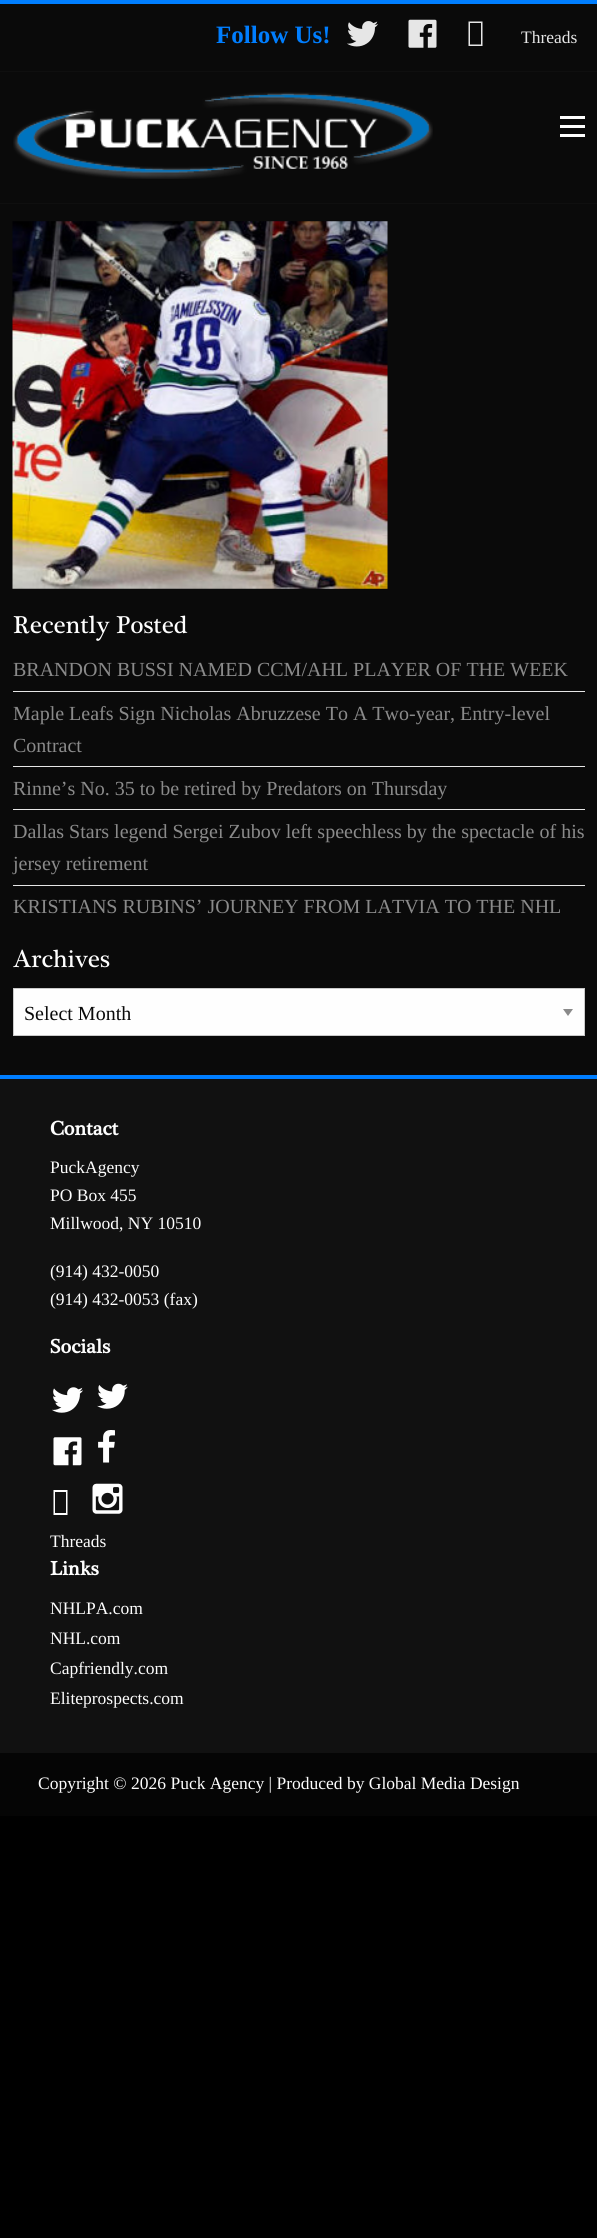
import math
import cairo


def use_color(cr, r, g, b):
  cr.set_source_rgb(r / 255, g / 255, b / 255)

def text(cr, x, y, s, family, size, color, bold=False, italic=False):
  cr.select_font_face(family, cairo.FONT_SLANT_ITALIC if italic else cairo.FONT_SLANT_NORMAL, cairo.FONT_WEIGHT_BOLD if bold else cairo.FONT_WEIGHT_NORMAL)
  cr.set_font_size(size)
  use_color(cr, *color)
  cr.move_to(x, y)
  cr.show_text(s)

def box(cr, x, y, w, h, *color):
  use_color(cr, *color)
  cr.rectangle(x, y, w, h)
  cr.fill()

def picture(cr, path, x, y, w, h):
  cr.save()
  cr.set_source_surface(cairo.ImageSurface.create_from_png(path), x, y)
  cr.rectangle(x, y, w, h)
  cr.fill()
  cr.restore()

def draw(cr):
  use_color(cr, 0, 0, 0)
  cr.paint()
  box(cr, 0, 4, 597, 1071, 10, 10, 10)
  box(cr, 0, 0, 597, 4, 0, 126, 255)
  picture(cr, "img_01.png", 347, 21, 31, 26)
  picture(cr, "img_02.png", 408, 19, 29, 29)
  use_color(cr, 230, 230, 230)
  cr.new_path()
  cr.move_to(468.5, 46)
  cr.line_to(468.5, 21.5)
  cr.line_to(482.5, 21.5)
  cr.line_to(482.5, 46)
  cr.close_path()
  cr.move_to(470, 44.5)
  cr.line_to(481, 44.5)
  cr.line_to(481, 23)
  cr.line_to(470, 23)
  cr.close_path()
  cr.fill()
  box(cr, 0, 71, 597, 1, 15, 15, 15)
  box(cr, 0, 203, 597, 1, 15, 15, 15)
  picture(cr, "img_03.png", 13, 92, 420, 87)
  box(cr, 560, 134, 25, 3, 254, 254, 254)
  box(cr, 560, 125, 25, 3, 254, 254, 254)
  box(cr, 560, 116, 25, 3, 254, 254, 254)
  picture(cr, "img_04.png", 12, 221, 376, 368)
  box(cr, 13, 691, 572, 1, 230, 230, 230)
  box(cr, 13, 766, 572, 1, 230, 230, 230)
  box(cr, 13, 809, 572, 1, 230, 230, 230)
  box(cr, 13, 885, 572, 1, 230, 230, 230)
  box(cr, 14, 989, 570, 46, 254, 254, 254)
  use_color(cr, 138, 138, 138)
  cr.new_path()
  cr.move_to(563, 1009)
  cr.line_to(573, 1009)
  cr.line_to(568, 1016)
  cr.close_path()
  cr.fill()
  cr.rectangle(13.5, 988.5, 571, 47)
  use_color(cr, 202, 202, 202)
  cr.set_line_width(1)
  cr.stroke()
  box(cr, 0, 1079, 597, 674, 17, 17, 17)
  box(cr, 0, 1075, 597, 4, 0, 126, 255)
  picture(cr, "img_05.png", 52, 1387, 31, 26)
  picture(cr, "img_06.png", 97, 1383, 31, 26)
  picture(cr, "img_07.png", 53, 1437, 29, 29)
  picture(cr, "img_08.png", 98, 1430, 17, 33)
  use_color(cr, 254, 254, 254)
  cr.new_path()
  cr.move_to(53.5, 1515)
  cr.line_to(53.5, 1490)
  cr.line_to(67.5, 1490)
  cr.line_to(67.5, 1515)
  cr.close_path()
  cr.move_to(55, 1513)
  cr.line_to(66, 1513)
  cr.line_to(66, 1492)
  cr.line_to(55, 1492)
  cr.close_path()
  cr.fill()
  picture(cr, "img_09.png", 92, 1483, 31, 31)
  box(cr, 0, 1753, 597, 63, 5, 5, 5)
  text(cr, 216, 43, "Follow Us!", "Liberation Serif", 25, (0, 126, 255), bold=True)
  text(cr, 521, 43, "Threads", "Liberation Serif", 17.5, (230, 230, 230))
  text(cr, 13, 633, "Recently Posted", "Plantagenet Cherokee", 25, (254, 254, 254))
  text(cr, 13, 676, "BRANDON BUSSI NAMED CCM/AHL PLAYER OF THE WEEK", "Liberation Serif", 20, (138, 138, 138))
  text(cr, 13, 720, "Maple Leafs Sign Nicholas Abruzzese To A Two-year, Entry-level", "Liberation Serif", 20, (138, 138, 138))
  text(cr, 13, 752, "Contract", "Liberation Serif", 20, (138, 138, 138))
  text(cr, 13, 795, "Rinne’s No. 35 to be retired by Predators on Thursday", "Liberation Serif", 20, (138, 138, 138))
  text(cr, 13, 838, "Dallas Stars legend Sergei Zubov left speechless by the spectacle of his", "Liberation Serif", 20, (138, 138, 138))
  text(cr, 13, 870, "jersey retirement", "Liberation Serif", 20, (138, 138, 138))
  text(cr, 13, 913, "KRISTIANS RUBINS’ JOURNEY FROM LATVIA TO THE NHL", "Liberation Serif", 20, (138, 138, 138))
  text(cr, 13, 967, "Archives", "Plantagenet Cherokee", 25, (254, 254, 254))
  text(cr, 24, 1020, "Select Month", "Liberation Serif", 20, (10, 10, 10))
  text(cr, 50, 1135, "Contact", "Plantagenet Cherokee", 20, (254, 254, 254), bold=True)
  text(cr, 50, 1173, "PuckAgency", "Liberation Serif", 17.5, (254, 254, 254))
  text(cr, 50, 1201, "PO Box 455", "Liberation Serif", 17.5, (254, 254, 254))
  text(cr, 50, 1229, "Millwood, NY 10510", "Liberation Serif", 17.5, (254, 254, 254))
  text(cr, 50, 1277, "(914) 432-0050", "Liberation Serif", 17.5, (254, 254, 254))
  text(cr, 50, 1305, "(914) 432-0053 (fax)", "Liberation Serif", 17.5, (254, 254, 254))
  text(cr, 50, 1353, "Socials", "Plantagenet Cherokee", 20, (254, 254, 254), bold=True)
  text(cr, 50, 1547, "Threads", "Liberation Serif", 17.5, (254, 254, 254))
  text(cr, 50, 1575, "Links", "Plantagenet Cherokee", 20, (254, 254, 254), bold=True)
  text(cr, 50, 1614, "NHLPA.com", "Liberation Serif", 17.5, (254, 254, 254))
  text(cr, 50, 1644, "NHL.com", "Liberation Serif", 17.5, (254, 254, 254))
  text(cr, 50, 1674, "Capfriendly.com", "Liberation Serif", 17.5, (254, 254, 254))
  text(cr, 50, 1704, "Eliteprospects.com", "Liberation Serif", 17.5, (254, 254, 254))
  text(cr, 38, 1789, "Copyright © 2026 Puck Agency | Produced by Global Media Design", "Liberation Serif", 17.5, (254, 254, 254))


surface = cairo.ImageSurface(cairo.FORMAT_RGB24, 597, 2238)
cr = cairo.Context(surface)
options = cairo.FontOptions()
options.set_hint_metrics(cairo.HINT_METRICS_OFF)
options.set_hint_style(cairo.HINT_STYLE_NONE)
cr.set_font_options(options)
cr.set_miter_limit(4)
draw(cr)
surface.write_to_png("out.png")
